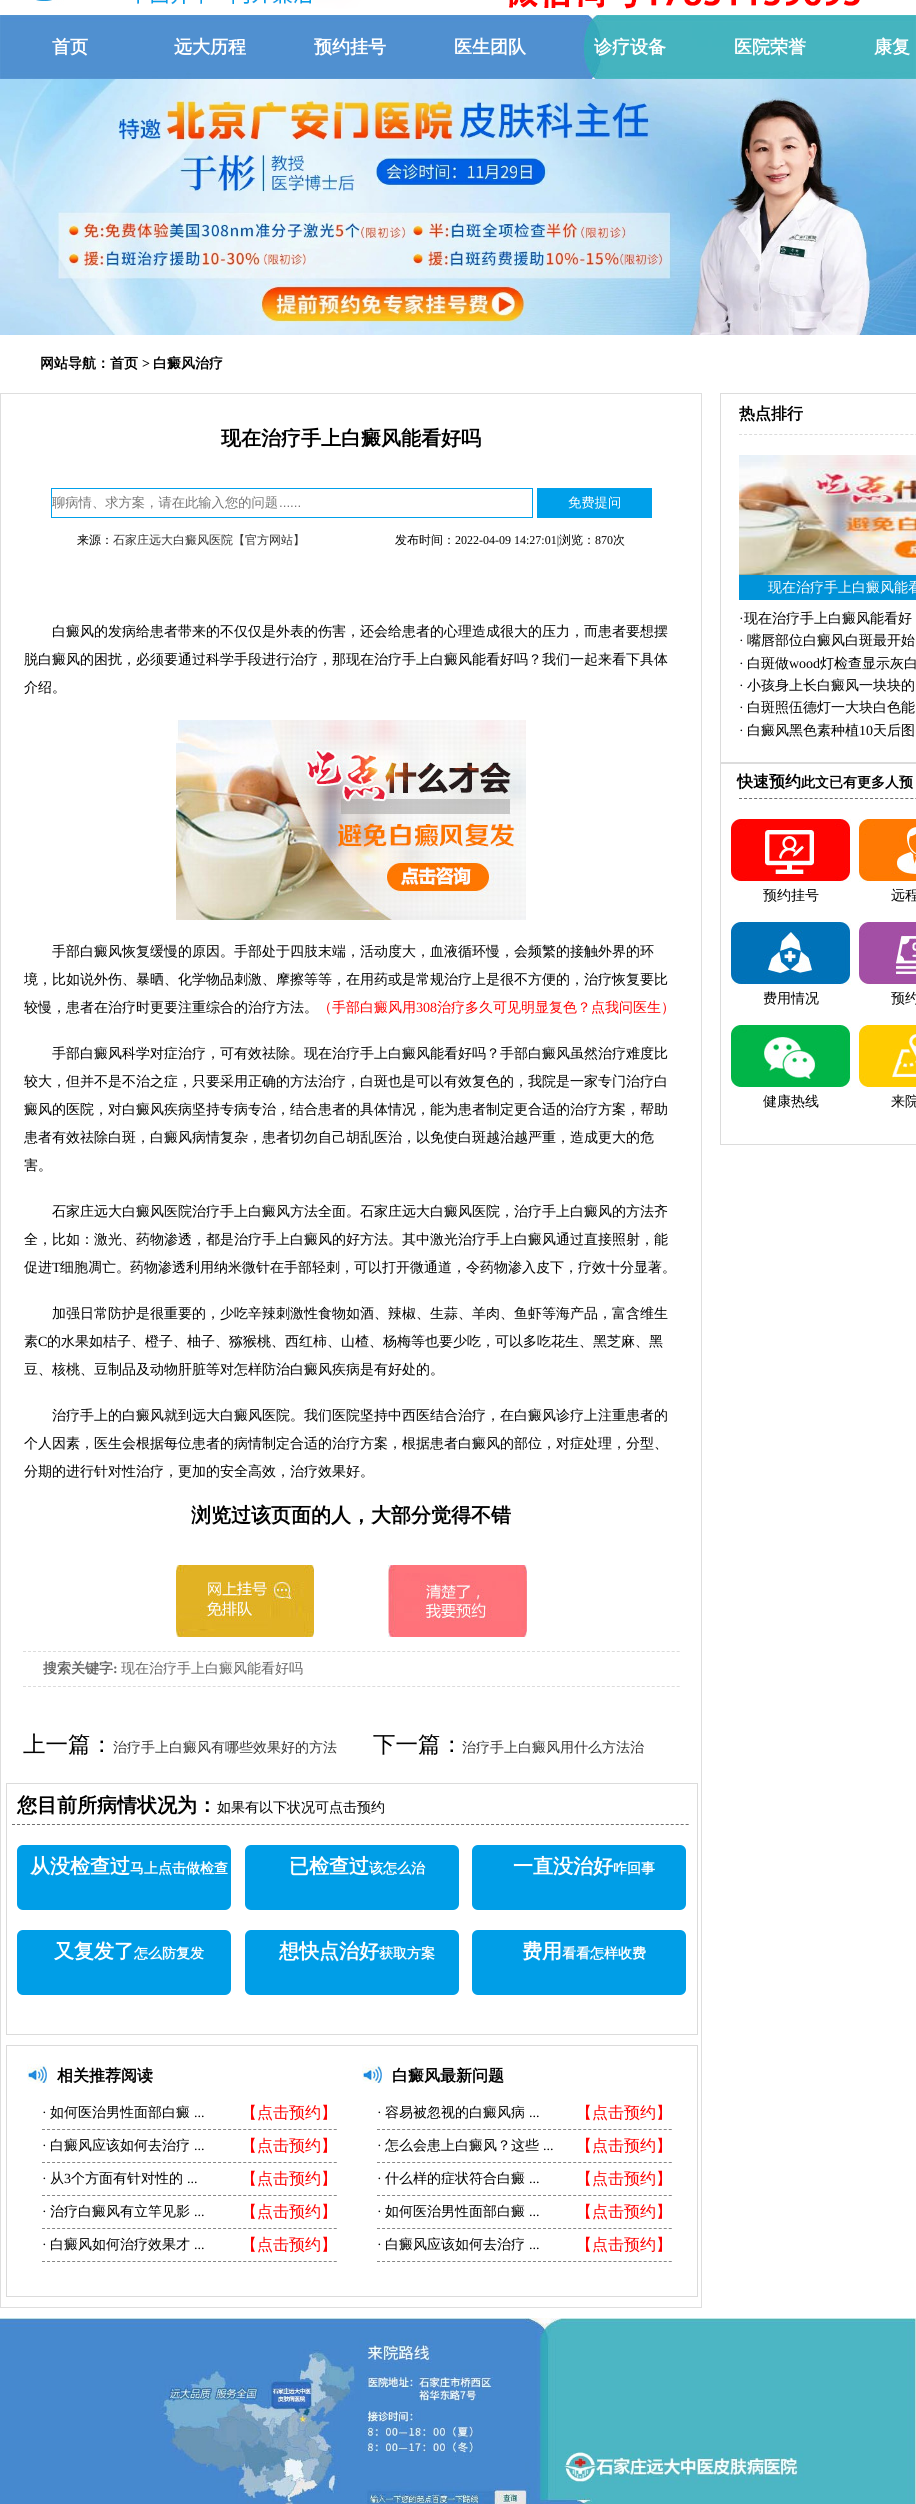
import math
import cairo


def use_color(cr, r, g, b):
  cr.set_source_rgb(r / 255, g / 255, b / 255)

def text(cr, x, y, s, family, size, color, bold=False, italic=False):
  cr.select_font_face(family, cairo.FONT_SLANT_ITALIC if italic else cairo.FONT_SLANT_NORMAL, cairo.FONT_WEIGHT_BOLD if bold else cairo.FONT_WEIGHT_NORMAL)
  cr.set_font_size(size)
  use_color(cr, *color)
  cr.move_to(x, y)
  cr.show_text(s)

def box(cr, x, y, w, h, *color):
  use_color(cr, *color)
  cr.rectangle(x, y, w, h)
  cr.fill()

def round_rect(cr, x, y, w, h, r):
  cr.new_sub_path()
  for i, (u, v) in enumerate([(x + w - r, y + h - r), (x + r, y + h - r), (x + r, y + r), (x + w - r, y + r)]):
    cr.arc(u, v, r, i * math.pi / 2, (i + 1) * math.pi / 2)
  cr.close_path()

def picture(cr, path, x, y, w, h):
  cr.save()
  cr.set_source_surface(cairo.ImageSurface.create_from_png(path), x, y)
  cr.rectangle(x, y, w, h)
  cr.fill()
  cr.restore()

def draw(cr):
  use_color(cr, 255, 255, 255)
  cr.paint()
  picture(cr, "img_01.png", 36, 0, 824, 9)
  picture(cr, "img_02.png", 0, 15, 916, 64)
  picture(cr, "img_03.png", 0, 79, 916, 256)
  cr.rectangle(0.5, 393.5, 701, 1914)
  use_color(cr, 222, 222, 222)
  cr.set_line_width(1)
  cr.stroke()
  cr.rectangle(51.5, 488.5, 481, 29)
  use_color(cr, 0, 160, 234)
  cr.stroke()
  box(cr, 537, 488, 115, 30, 0, 160, 234)
  picture(cr, "img_04.png", 176, 720, 350, 200)
  picture(cr, "img_05.png", 176, 1565, 138, 72)
  picture(cr, "img_06.png", 388, 1565, 139, 72)
  cr.new_path()
  cr.move_to(23, 1651.5)
  cr.line_to(680, 1651.5)
  use_color(cr, 220, 220, 220)
  cr.set_dash([3, 1.99])
  cr.stroke()
  cr.new_path()
  cr.move_to(23, 1686.5)
  cr.line_to(680, 1686.5)
  cr.stroke()
  cr.rectangle(6.5, 1783.5, 691, 251)
  use_color(cr, 219, 219, 219)
  cr.set_dash([])
  cr.stroke()
  cr.new_path()
  cr.move_to(12, 1824.5)
  cr.line_to(689, 1824.5)
  use_color(cr, 110, 110, 110)
  cr.set_dash([3, 1.99])
  cr.stroke()
  use_color(cr, 0, 158, 231)
  round_rect(cr, 17, 1845, 214, 65, 6)
  cr.fill()
  round_rect(cr, 245, 1845, 214, 65, 6)
  cr.fill()
  round_rect(cr, 472, 1845, 214, 65, 6)
  cr.fill()
  round_rect(cr, 17, 1930, 214, 65, 6)
  cr.fill()
  round_rect(cr, 245, 1930, 214, 65, 6)
  cr.fill()
  round_rect(cr, 472, 1930, 214, 65, 6)
  cr.fill()
  cr.rectangle(6.5, 2045.5, 691, 251)
  use_color(cr, 219, 219, 219)
  cr.set_dash([])
  cr.stroke()
  picture(cr, "img_07.png", 27, 2064, 20, 20)
  cr.new_path()
  cr.move_to(42, 2129.5)
  cr.line_to(337, 2129.5)
  use_color(cr, 133, 133, 133)
  cr.set_dash([3, 2.03])
  cr.stroke()
  cr.new_path()
  cr.move_to(42, 2162.5)
  cr.line_to(337, 2162.5)
  cr.stroke()
  cr.new_path()
  cr.move_to(42, 2195.5)
  cr.line_to(337, 2195.5)
  cr.stroke()
  cr.new_path()
  cr.move_to(42, 2228.5)
  cr.line_to(337, 2228.5)
  cr.stroke()
  cr.new_path()
  cr.move_to(42, 2261.5)
  cr.line_to(337, 2261.5)
  cr.stroke()
  picture(cr, "img_07.png", 362, 2064, 20, 20)
  cr.new_path()
  cr.move_to(377, 2129.5)
  cr.line_to(672, 2129.5)
  cr.stroke()
  cr.new_path()
  cr.move_to(377, 2162.5)
  cr.line_to(672, 2162.5)
  cr.stroke()
  cr.new_path()
  cr.move_to(377, 2195.5)
  cr.line_to(672, 2195.5)
  cr.stroke()
  cr.new_path()
  cr.move_to(377, 2228.5)
  cr.line_to(672, 2228.5)
  cr.stroke()
  cr.new_path()
  cr.move_to(377, 2261.5)
  cr.line_to(672, 2261.5)
  cr.stroke()
  cr.rectangle(720.5, 393.5, 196, 369)
  use_color(cr, 220, 220, 220)
  cr.set_dash([])
  cr.stroke()
  cr.new_path()
  cr.move_to(739, 434.5)
  cr.line_to(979, 434.5)
  cr.set_dash([3, 2.04])
  cr.stroke()
  picture(cr, "img_08.png", 739, 455, 177, 120)
  box(cr, 739, 575, 177, 25, 1, 148, 217)
  cr.rectangle(720.5, 763.5, 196, 381)
  use_color(cr, 220, 220, 220)
  cr.set_dash([])
  cr.stroke()
  cr.new_path()
  cr.move_to(739, 798.5)
  cr.line_to(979, 798.5)
  use_color(cr, 110, 110, 110)
  cr.set_dash([3, 2.04])
  cr.stroke()
  picture(cr, "img_09.png", 731, 819, 120, 63)
  picture(cr, "img_10.png", 859, 819, 57, 63)
  picture(cr, "img_11.png", 731, 922, 120, 63)
  picture(cr, "img_12.png", 859, 922, 57, 63)
  picture(cr, "img_13.png", 731, 1025, 120, 63)
  picture(cr, "img_14.png", 859, 1025, 57, 63)
  picture(cr, "img_15.png", 0, 2318, 916, 186)
  text(cr, 52, 53, "首页", "WenQuanYi Zen Hei", 18, (255, 255, 255), bold=True)
  text(cr, 174, 53, "远大历程", "WenQuanYi Zen Hei", 18, (255, 255, 255), bold=True)
  text(cr, 314, 53, "预约挂号", "WenQuanYi Zen Hei", 18, (255, 255, 255), bold=True)
  text(cr, 454, 53, "医生团队", "WenQuanYi Zen Hei", 18, (255, 255, 255), bold=True)
  text(cr, 594, 53, "诊疗设备", "WenQuanYi Zen Hei", 18, (255, 255, 255), bold=True)
  text(cr, 734, 53, "医院荣誉", "WenQuanYi Zen Hei", 18, (255, 255, 255), bold=True)
  text(cr, 874, 53, "康复", "WenQuanYi Zen Hei", 18, (255, 255, 255), bold=True)
  text(cr, 40, 368, "网站导航：首页", "WenQuanYi Zen Hei", 14, (0, 0, 0), bold=True)
  text(cr, 142, 368, ">", "Liberation Serif", 14, (0, 0, 0), bold=True)
  text(cr, 153, 368, "白癜风治疗", "WenQuanYi Zen Hei", 14, (0, 0, 0), bold=True)
  text(cr, 221, 445, "现在治疗手上白癜风能看好吗", "WenQuanYi Zen Hei", 20, (0, 0, 0), bold=True)
  text(cr, 52, 507, "聊病情、求方案，请在此输入您的问题", "WenQuanYi Zen Hei Medium", 13.3, (117, 117, 117))
  text(cr, 279, 507, "......", "Liberation Sans", 13.3, (117, 117, 117))
  text(cr, 568, 507, "免费提问", "WenQuanYi Zen Hei Medium", 13.3, (255, 255, 255))
  text(cr, 77, 544, "来源：", "WenQuanYi Zen Hei Medium", 12, (0, 0, 0))
  text(cr, 113, 544, "石家庄远大白癜风医院【官方网站】", "WenQuanYi Zen Hei Medium", 12, (51, 51, 51))
  text(cr, 395, 544, "发布时间：", "WenQuanYi Zen Hei Medium", 12, (0, 0, 0))
  text(cr, 455, 544, "2022-04-09 14:27:01|", "Liberation Serif", 12, (0, 0, 0))
  text(cr, 559, 544, "浏览：", "WenQuanYi Zen Hei Medium", 12, (0, 0, 0))
  text(cr, 595, 544, "870", "Liberation Serif", 12, (0, 0, 0))
  text(cr, 613, 544, "次", "WenQuanYi Zen Hei Medium", 12, (0, 0, 0))
  text(cr, 52, 636, "白癜风的发病给患者带来的不仅仅是外表的伤害，还会给患者的心理造成很大的压力，而患者要想摆", "WenQuanYi Zen Hei Medium", 14, (0, 0, 0))
  text(cr, 24, 664, "脱白癜风的困扰，必须要通过科学手段进行治疗，那现在治疗手上白癜风能看好吗？我们一起来看下具体", "WenQuanYi Zen Hei Medium", 14, (0, 0, 0))
  text(cr, 24, 692, "介绍。", "WenQuanYi Zen Hei Medium", 14, (0, 0, 0))
  text(cr, 52, 956, "手部白癜风恢复缓慢的原因。手部处于四肢末端，活动度大，血液循环慢，会频繁的接触外界的环", "WenQuanYi Zen Hei Medium", 14, (0, 0, 0))
  text(cr, 24, 984, "境，比如说外伤、暴晒、化学物品刺激、摩擦等等，在用药或是常规治疗上是很不方便的，治疗恢复要比", "WenQuanYi Zen Hei Medium", 14, (0, 0, 0))
  text(cr, 24, 1012, "较慢，患者在治疗时更要注重综合的治疗方法。", "WenQuanYi Zen Hei Medium", 14, (0, 0, 0))
  text(cr, 318, 1012, "（手部白癜风用", "WenQuanYi Zen Hei Medium", 14, (255, 0, 0))
  text(cr, 416, 1012, "308", "Liberation Serif", 14, (255, 0, 0))
  text(cr, 437, 1012, "治疗多久可见明显复色？点我问医生）", "WenQuanYi Zen Hei Medium", 14, (255, 0, 0))
  text(cr, 52, 1058, "手部白癜风科学对症治疗，可有效祛除。现在治疗手上白癜风能看好吗？手部白癜风虽然治疗难度比", "WenQuanYi Zen Hei Medium", 14, (0, 0, 0))
  text(cr, 24, 1086, "较大，但并不是不治之症，只要采用正确的方法治疗，白斑也是可以有效复色的，我院是一家专门治疗白", "WenQuanYi Zen Hei Medium", 14, (0, 0, 0))
  text(cr, 24, 1114, "癜风的医院，对白癜风疾病坚持专病专治，结合患者的具体情况，能为患者制定更合适的治疗方案，帮助", "WenQuanYi Zen Hei Medium", 14, (0, 0, 0))
  text(cr, 24, 1142, "患者有效祛除白斑，白癜风病情复杂，患者切勿自己胡乱医治，以免使白斑越治越严重，造成更大的危", "WenQuanYi Zen Hei Medium", 14, (0, 0, 0))
  text(cr, 24, 1170, "害。", "WenQuanYi Zen Hei Medium", 14, (0, 0, 0))
  text(cr, 52, 1216, "石家庄远大白癜风医院治疗手上白癜风方法全面。石家庄远大白癜风医院，治疗手上白癜风的方法齐", "WenQuanYi Zen Hei Medium", 14, (0, 0, 0))
  text(cr, 24, 1244, "全，比如：激光、药物渗透，都是治疗手上白癜风的好方法。其中激光治疗手上白癜风通过直接照射，能", "WenQuanYi Zen Hei Medium", 14, (0, 0, 0))
  text(cr, 24, 1272, "促进", "WenQuanYi Zen Hei Medium", 14, (0, 0, 0))
  text(cr, 52, 1272, "T", "Liberation Serif", 14, (0, 0, 0))
  text(cr, 60, 1272, "细胞凋亡。药物渗透利用纳米微针在手部轻刺，可以打开微通道，令药物渗入皮下，疗效十分显著。", "WenQuanYi Zen Hei Medium", 14, (0, 0, 0))
  text(cr, 52, 1318, "加强日常防护是很重要的，少吃辛辣刺激性食物如酒、辣椒、生蒜、羊肉、鱼虾等海产品，富含维生", "WenQuanYi Zen Hei Medium", 14, (0, 0, 0))
  text(cr, 24, 1346, "素", "WenQuanYi Zen Hei Medium", 14, (0, 0, 0))
  text(cr, 38, 1346, "C", "Liberation Serif", 14, (0, 0, 0))
  text(cr, 47, 1346, "的水果如桔子、橙子、柚子、猕猴桃、西红柿、山楂、杨梅等也要少吃，可以多吃花生、黑芝麻、黑", "WenQuanYi Zen Hei Medium", 14, (0, 0, 0))
  text(cr, 24, 1374, "豆、核桃、豆制品及动物肝脏等对怎样防治白癜风疾病是有好处的。", "WenQuanYi Zen Hei Medium", 14, (0, 0, 0))
  text(cr, 52, 1420, "治疗手上的白癜风就到远大白癜风医院。我们医院坚持中西医结合治疗，在白癜风诊疗上注重患者的", "WenQuanYi Zen Hei Medium", 14, (0, 0, 0))
  text(cr, 24, 1448, "个人因素，医生会根据每位患者的病情制定合适的治疗方案，根据患者白癜风的部位，对症处理，分型、", "WenQuanYi Zen Hei Medium", 14, (0, 0, 0))
  text(cr, 24, 1476, "分期的进行针对性治疗，更加的安全高效，治疗效果好。", "WenQuanYi Zen Hei Medium", 14, (0, 0, 0))
  text(cr, 191, 1522, "浏览过该页面的人，大部分觉得不错", "WenQuanYi Zen Hei", 20, (0, 0, 0), bold=True)
  text(cr, 43, 1673, "搜索关键字", "WenQuanYi Zen Hei", 14, (102, 102, 102), bold=True)
  text(cr, 113, 1673, ":", "Liberation Serif", 14, (102, 102, 102), bold=True)
  text(cr, 121, 1673, "现在治疗手上白癜风能看好吗", "WenQuanYi Zen Hei Medium", 14, (102, 102, 102))
  text(cr, 23, 1752, "上一篇：", "WenQuanYi Zen Hei Medium", 22.5, (0, 0, 0))
  text(cr, 113, 1752, "治疗手上白癜风有哪些效果好的方法", "WenQuanYi Zen Hei Medium", 14, (51, 51, 51))
  text(cr, 373, 1752, "下一篇：", "WenQuanYi Zen Hei Medium", 22.5, (0, 0, 0))
  text(cr, 462, 1752, "治疗手上白癜风用什么方法治", "WenQuanYi Zen Hei Medium", 14, (51, 51, 51))
  text(cr, 17, 1812, "您目前所病情状况为：", "WenQuanYi Zen Hei", 20, (0, 0, 0), bold=True)
  text(cr, 217, 1812, "如果有以下状况可点击预约", "WenQuanYi Zen Hei Medium", 14, (0, 0, 0))
  text(cr, 30, 1873, "从没检查过", "WenQuanYi Zen Hei", 20, (255, 255, 255), bold=True)
  text(cr, 130, 1873, "马上点击做检查", "WenQuanYi Zen Hei", 14, (255, 255, 255), bold=True)
  text(cr, 289, 1873, "已检查过", "WenQuanYi Zen Hei", 20, (255, 255, 255), bold=True)
  text(cr, 369, 1873, "该怎么治", "WenQuanYi Zen Hei", 14, (255, 255, 255), bold=True)
  text(cr, 513, 1873, "一直没治好", "WenQuanYi Zen Hei", 20, (255, 255, 255), bold=True)
  text(cr, 613, 1873, "咋回事", "WenQuanYi Zen Hei", 14, (255, 255, 255), bold=True)
  text(cr, 54, 1958, "又复发了", "WenQuanYi Zen Hei", 20, (255, 255, 255), bold=True)
  text(cr, 134, 1958, "怎么防复发", "WenQuanYi Zen Hei", 14, (255, 255, 255), bold=True)
  text(cr, 279, 1958, "想快点治好", "WenQuanYi Zen Hei", 20, (255, 255, 255), bold=True)
  text(cr, 379, 1958, "获取方案", "WenQuanYi Zen Hei", 14, (255, 255, 255), bold=True)
  text(cr, 522, 1958, "费用", "WenQuanYi Zen Hei", 20, (255, 255, 255), bold=True)
  text(cr, 562, 1958, "看看怎样收费", "WenQuanYi Zen Hei", 14, (255, 255, 255), bold=True)
  text(cr, 57, 2081, "相关推荐阅读", "WenQuanYi Zen Hei", 16, (0, 0, 0), bold=True)
  text(cr, 42, 2117, "·", "Liberation Serif", 14, (0, 0, 0))
  text(cr, 50, 2117, "如何医治男性面部白癜", "WenQuanYi Zen Hei Medium", 14, (0, 0, 0))
  text(cr, 194, 2117, "...", "Liberation Serif", 14, (0, 0, 0))
  text(cr, 241, 2118, "【点击预约】", "WenQuanYi Zen Hei Medium", 16, (255, 0, 0))
  text(cr, 42, 2150, "·", "Liberation Serif", 14, (0, 0, 0))
  text(cr, 50, 2150, "白癜风应该如何去治疗", "WenQuanYi Zen Hei Medium", 14, (0, 0, 0))
  text(cr, 194, 2150, "...", "Liberation Serif", 14, (0, 0, 0))
  text(cr, 241, 2151, "【点击预约】", "WenQuanYi Zen Hei Medium", 16, (255, 0, 0))
  text(cr, 42, 2183, "·", "Liberation Serif", 14, (0, 0, 0))
  text(cr, 50, 2183, "从", "WenQuanYi Zen Hei Medium", 14, (0, 0, 0))
  text(cr, 64, 2183, "3", "Liberation Serif", 14, (0, 0, 0))
  text(cr, 71, 2183, "个方面有针对性的", "WenQuanYi Zen Hei Medium", 14, (0, 0, 0))
  text(cr, 187, 2183, "...", "Liberation Serif", 14, (0, 0, 0))
  text(cr, 241, 2184, "【点击预约】", "WenQuanYi Zen Hei Medium", 16, (255, 0, 0))
  text(cr, 42, 2216, "·", "Liberation Serif", 14, (0, 0, 0))
  text(cr, 50, 2216, "治疗白癜风有立竿见影", "WenQuanYi Zen Hei Medium", 14, (0, 0, 0))
  text(cr, 194, 2216, "...", "Liberation Serif", 14, (0, 0, 0))
  text(cr, 241, 2217, "【点击预约】", "WenQuanYi Zen Hei Medium", 16, (255, 0, 0))
  text(cr, 42, 2249, "·", "Liberation Serif", 14, (0, 0, 0))
  text(cr, 50, 2249, "白癜风如何治疗效果才", "WenQuanYi Zen Hei Medium", 14, (0, 0, 0))
  text(cr, 194, 2249, "...", "Liberation Serif", 14, (0, 0, 0))
  text(cr, 241, 2250, "【点击预约】", "WenQuanYi Zen Hei Medium", 16, (255, 0, 0))
  text(cr, 392, 2081, "白癜风最新问题", "WenQuanYi Zen Hei", 16, (0, 0, 0), bold=True)
  text(cr, 377, 2117, "·", "Liberation Serif", 14, (0, 0, 0))
  text(cr, 385, 2117, "容易被忽视的白癜风病", "WenQuanYi Zen Hei Medium", 14, (0, 0, 0))
  text(cr, 529, 2117, "...", "Liberation Serif", 14, (0, 0, 0))
  text(cr, 576, 2118, "【点击预约】", "WenQuanYi Zen Hei Medium", 16, (255, 0, 0))
  text(cr, 377, 2150, "·", "Liberation Serif", 14, (0, 0, 0))
  text(cr, 385, 2150, "怎么会患上白癜风？这些", "WenQuanYi Zen Hei Medium", 14, (0, 0, 0))
  text(cr, 543, 2150, "...", "Liberation Serif", 14, (0, 0, 0))
  text(cr, 576, 2151, "【点击预约】", "WenQuanYi Zen Hei Medium", 16, (255, 0, 0))
  text(cr, 377, 2183, "·", "Liberation Serif", 14, (0, 0, 0))
  text(cr, 385, 2183, "什么样的症状符合白癜", "WenQuanYi Zen Hei Medium", 14, (0, 0, 0))
  text(cr, 529, 2183, "...", "Liberation Serif", 14, (0, 0, 0))
  text(cr, 576, 2184, "【点击预约】", "WenQuanYi Zen Hei Medium", 16, (255, 0, 0))
  text(cr, 377, 2216, "·", "Liberation Serif", 14, (0, 0, 0))
  text(cr, 385, 2216, "如何医治男性面部白癜", "WenQuanYi Zen Hei Medium", 14, (0, 0, 0))
  text(cr, 529, 2216, "...", "Liberation Serif", 14, (0, 0, 0))
  text(cr, 576, 2217, "【点击预约】", "WenQuanYi Zen Hei Medium", 16, (255, 0, 0))
  text(cr, 377, 2249, "·", "Liberation Serif", 14, (0, 0, 0))
  text(cr, 385, 2249, "白癜风应该如何去治疗", "WenQuanYi Zen Hei Medium", 14, (0, 0, 0))
  text(cr, 529, 2249, "...", "Liberation Serif", 14, (0, 0, 0))
  text(cr, 576, 2250, "【点击预约】", "WenQuanYi Zen Hei Medium", 16, (255, 0, 0))
  text(cr, 739, 419, "热点排行", "WenQuanYi Zen Hei", 16, (0, 0, 0), bold=True)
  text(cr, 768, 592, "现在治疗手上白癜风能看", "WenQuanYi Zen Hei Medium", 14, (255, 255, 255))
  text(cr, 739, 623, "·", "Liberation Serif", 14, (0, 0, 0))
  text(cr, 744, 623, "现在治疗手上白癜风能看好", "WenQuanYi Zen Hei Medium", 14, (0, 0, 0))
  text(cr, 739, 645, "·", "Liberation Serif", 14, (0, 0, 0))
  text(cr, 747, 645, "嘴唇部位白癜风白斑最开始", "WenQuanYi Zen Hei Medium", 14, (0, 0, 0))
  text(cr, 739, 668, "·", "Liberation Serif", 14, (0, 0, 0))
  text(cr, 747, 668, "白斑做", "WenQuanYi Zen Hei Medium", 14, (0, 0, 0))
  text(cr, 789, 668, "wood", "Liberation Serif", 14, (0, 0, 0))
  text(cr, 820, 668, "灯检查显示灰白", "WenQuanYi Zen Hei Medium", 14, (0, 0, 0))
  text(cr, 739, 690, "·", "Liberation Serif", 14, (0, 0, 0))
  text(cr, 747, 690, "小孩身上长白癜风一块块的", "WenQuanYi Zen Hei Medium", 14, (0, 0, 0))
  text(cr, 739, 712, "·", "Liberation Serif", 14, (0, 0, 0))
  text(cr, 747, 712, "白斑照伍德灯一大块白色能", "WenQuanYi Zen Hei Medium", 14, (0, 0, 0))
  text(cr, 739, 735, "·", "Liberation Serif", 14, (0, 0, 0))
  text(cr, 747, 735, "白癜风黑色素种植", "WenQuanYi Zen Hei Medium", 14, (0, 0, 0))
  text(cr, 859, 735, "10", "Liberation Serif", 14, (0, 0, 0))
  text(cr, 873, 735, "天后图", "WenQuanYi Zen Hei Medium", 14, (0, 0, 0))
  text(cr, 737, 787, "快速预约", "WenQuanYi Zen Hei", 16, (0, 0, 0), bold=True)
  text(cr, 801, 787, "此文已有更多人预", "WenQuanYi Zen Hei", 14, (0, 0, 0), bold=True)
  text(cr, 763, 900, "预约挂号", "WenQuanYi Zen Hei Medium", 14, (0, 0, 0))
  text(cr, 891, 900, "远程", "WenQuanYi Zen Hei Medium", 14, (0, 0, 0))
  text(cr, 763, 1003, "费用情况", "WenQuanYi Zen Hei Medium", 14, (0, 0, 0))
  text(cr, 891, 1003, "预约", "WenQuanYi Zen Hei Medium", 14, (0, 0, 0))
  text(cr, 763, 1106, "健康热线", "WenQuanYi Zen Hei Medium", 14, (0, 0, 0))
  text(cr, 891, 1106, "来院", "WenQuanYi Zen Hei Medium", 14, (0, 0, 0))


surface = cairo.ImageSurface(cairo.FORMAT_RGB24, 916, 2504)
cr = cairo.Context(surface)
options = cairo.FontOptions()
options.set_hint_metrics(cairo.HINT_METRICS_OFF)
options.set_hint_style(cairo.HINT_STYLE_NONE)
cr.set_font_options(options)
cr.set_miter_limit(4)
draw(cr)
surface.write_to_png("out.png")
